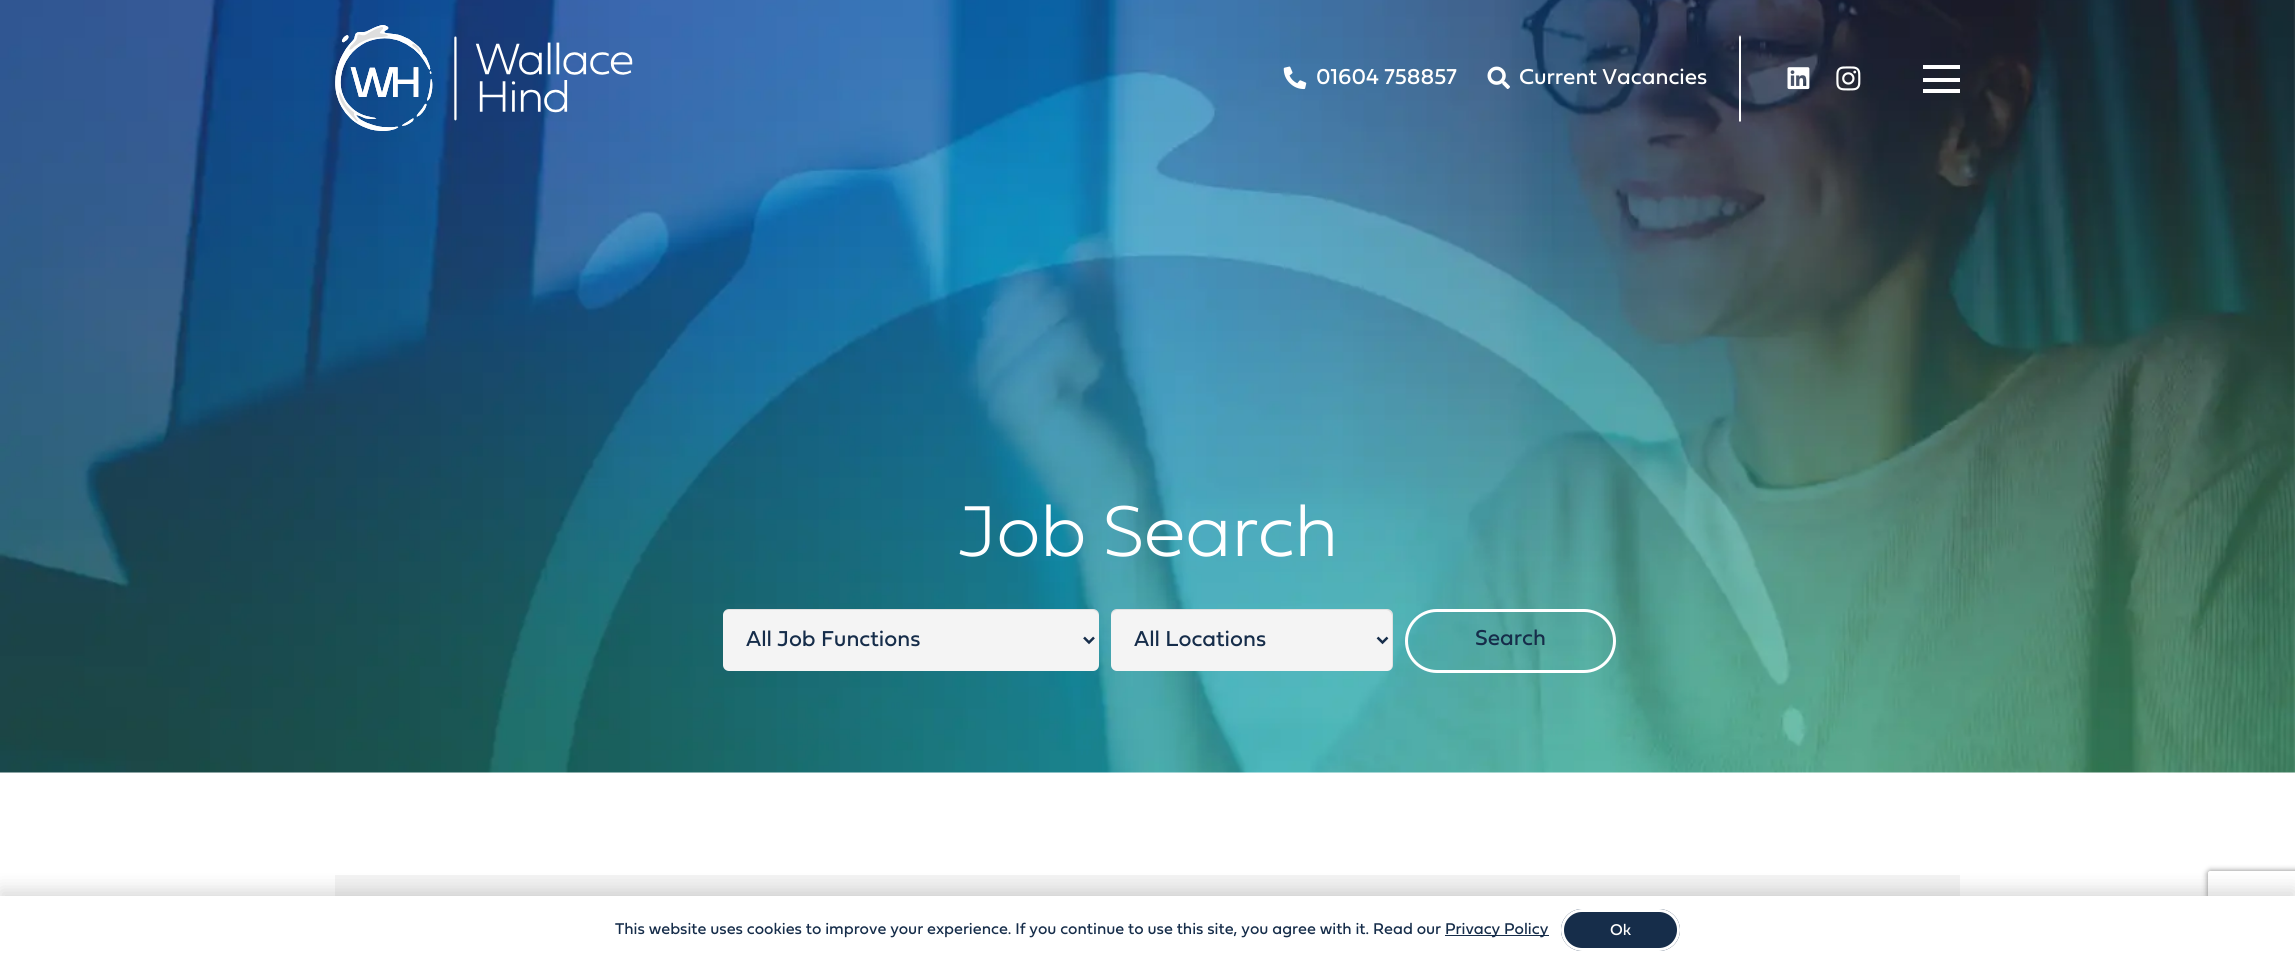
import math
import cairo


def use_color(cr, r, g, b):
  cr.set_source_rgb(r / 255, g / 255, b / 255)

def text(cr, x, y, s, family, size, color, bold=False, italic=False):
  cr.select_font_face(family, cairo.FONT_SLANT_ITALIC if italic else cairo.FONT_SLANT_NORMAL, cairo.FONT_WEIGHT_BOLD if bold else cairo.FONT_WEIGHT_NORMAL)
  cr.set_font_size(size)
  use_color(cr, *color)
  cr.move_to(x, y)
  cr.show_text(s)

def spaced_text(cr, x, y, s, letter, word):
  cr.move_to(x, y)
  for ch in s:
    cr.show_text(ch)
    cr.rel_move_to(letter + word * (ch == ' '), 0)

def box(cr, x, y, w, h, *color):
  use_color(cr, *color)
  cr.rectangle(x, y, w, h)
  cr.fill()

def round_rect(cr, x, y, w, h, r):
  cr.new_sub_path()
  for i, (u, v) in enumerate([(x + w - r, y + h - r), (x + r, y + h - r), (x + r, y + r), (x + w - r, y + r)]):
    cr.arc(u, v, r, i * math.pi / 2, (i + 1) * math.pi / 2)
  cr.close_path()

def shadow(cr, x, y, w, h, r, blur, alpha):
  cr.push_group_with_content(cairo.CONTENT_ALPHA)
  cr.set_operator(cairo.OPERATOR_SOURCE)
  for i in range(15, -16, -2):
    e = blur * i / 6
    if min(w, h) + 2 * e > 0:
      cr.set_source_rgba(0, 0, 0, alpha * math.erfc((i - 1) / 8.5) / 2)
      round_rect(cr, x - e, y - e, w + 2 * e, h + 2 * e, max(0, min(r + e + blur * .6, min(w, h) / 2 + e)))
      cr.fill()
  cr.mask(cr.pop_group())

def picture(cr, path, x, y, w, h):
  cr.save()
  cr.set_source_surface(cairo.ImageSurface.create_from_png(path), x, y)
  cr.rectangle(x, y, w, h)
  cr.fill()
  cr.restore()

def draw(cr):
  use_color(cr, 255, 255, 255)
  cr.paint()
  picture(cr, "img_06.png", 0, 0, 2295, 773)
  picture(cr, "img_01.png", 335, 25, 298, 106)
  picture(cr, "img_02.png", 1283, 66, 24, 24)
  picture(cr, "img_03.png", 1487, 66, 23, 23)
  use_color(cr, 255, 255, 255)
  cr.new_path()
  cr.move_to(1740, 122)
  cr.line_to(1739, 121)
  cr.line_to(1739, 37)
  cr.line_to(1740, 35)
  cr.line_to(1741, 37)
  cr.line_to(1741, 121)
  cr.close_path()
  cr.fill()
  picture(cr, "img_04.png", 1787, 67, 23, 23)
  picture(cr, "img_05.png", 1836, 66, 25, 25)
  box(cr, 1923, 78, 37, 4, 255, 255, 255)
  box(cr, 1923, 65, 37, 4, 255, 255, 255)
  box(cr, 1923, 89, 37, 4, 255, 255, 255)
  use_color(cr, 244, 244, 244)
  round_rect(cr, 723, 609, 376, 62, 6)
  cr.fill()
  cr.set_source_rgba(0, 0, 0, 0.08)
  cr.new_path()
  cr.move_to(729, 610)
  cr.line_to(1092, 610)
  cr.curve_to(1096, 610, 1099, 613, 1099, 617)
  cr.line_to(1099, 615)
  cr.curve_to(1099, 612, 1096, 609, 1093, 609)
  cr.line_to(729, 609)
  cr.curve_to(726, 609, 724, 611, 723, 613)
  cr.curve_to(725, 611, 727, 610, 729, 610)
  cr.close_path()
  cr.fill()
  cr.new_path()
  cr.move_to(1084, 637.5)
  cr.line_to(1089, 642.5)
  cr.line_to(1094, 637.5)
  use_color(cr, 22, 45, 74)
  cr.set_line_width(2.5)
  cr.stroke()
  use_color(cr, 244, 244, 244)
  round_rect(cr, 1111, 609, 282, 62, 6)
  cr.fill()
  cr.set_source_rgba(0, 0, 0, 0.08)
  cr.new_path()
  cr.move_to(1118, 610)
  cr.line_to(1386, 610)
  cr.curve_to(1389, 610, 1392, 613, 1392, 617)
  cr.line_to(1392, 666)
  cr.curve_to(1392, 667, 1391, 669, 1390, 670)
  cr.curve_to(1392, 669, 1393, 667, 1393, 665)
  cr.line_to(1393, 615)
  cr.curve_to(1393, 612, 1390, 609, 1387, 609)
  cr.line_to(1117, 609)
  cr.curve_to(1114, 609, 1111, 612, 1111, 615)
  cr.line_to(1111, 617)
  cr.curve_to(1111, 613, 1114, 610, 1118, 610)
  cr.close_path()
  cr.fill()
  cr.new_path()
  cr.move_to(1377.5, 637.5)
  cr.line_to(1382.5, 642.5)
  cr.line_to(1387.5, 637.5)
  use_color(cr, 22, 45, 74)
  cr.stroke()
  round_rect(cr, 1406.5, 610.5, 208, 61, 30.5)
  use_color(cr, 255, 255, 255)
  cr.set_line_width(3)
  cr.stroke()
  box(cr, 335, 875, 1625, 21, 244, 244, 244)
  use_color(cr, 0, 0, 0)
  shadow(cr, 0, 890, 2295, 68, 0, 9.5, 0.15)
  cr.save()
  cr.set_fill_rule(cairo.FILL_RULE_EVEN_ODD)
  cr.new_path()
  cr.move_to(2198, 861)
  cr.line_to(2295, 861)
  cr.line_to(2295, 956)
  cr.line_to(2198, 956)
  cr.close_path()
  cr.move_to(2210.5, 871)
  cr.line_to(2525.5, 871)
  cr.curve_to(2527, 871, 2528, 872, 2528, 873.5)
  cr.line_to(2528, 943.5)
  cr.curve_to(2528, 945, 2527, 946, 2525.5, 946)
  cr.line_to(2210.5, 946)
  cr.curve_to(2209, 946, 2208, 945, 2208, 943.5)
  cr.line_to(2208, 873.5)
  cr.curve_to(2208, 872, 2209, 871, 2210.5, 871)
  cr.close_path()
  cr.clip()
  use_color(cr, 128, 128, 128)
  shadow(cr, 2208, 871, 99, 75, 2.5, 3, 1)
  cr.restore()
  box(cr, 0, 896, 2295, 67, 255, 255, 255)
  box(cr, 1445, 935, 104, 1, 22, 45, 74)
  round_rect(cr, 1561, 909, 119, 42, 21)
  cr.fill()
  round_rect(cr, 1562.5, 910.5, 116, 39, 19.5)
  use_color(cr, 255, 255, 255)
  cr.stroke()
  text(cr, 1316, 84, "01604 758857", "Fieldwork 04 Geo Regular", 22.5, (255, 255, 255))
  text(cr, 1519, 84, "Current Vacancies", "Fieldwork 04 Geo Regular", 22.5, (255, 255, 255))
  cr.select_font_face("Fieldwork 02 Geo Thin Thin")
  cr.set_font_size(75)
  spaced_text(cr, 958, 556, "Job Search", -1.25, 0)
  text(cr, 746, 646, "All Job Functions", "Fieldwork 04 Geo Regular", 22.5, (22, 45, 74))
  text(cr, 1134, 646, "All Locations", "Fieldwork 04 Geo Regular", 22.5, (22, 45, 74))
  text(cr, 1475, 645, "Search", "Fieldwork 04 Geo Regular", 22.5, (22, 45, 74))
  text(cr, 615, 934, "This website uses cookies to improve your experience. If you continue to use this site, you agree with it. Read our", "Fieldwork 04 Geo Regular", 16.25, (22, 45, 74))
  text(cr, 1445, 934, "Privacy Policy", "Fieldwork 04 Geo Regular", 16.25, (22, 45, 74))
  text(cr, 1610, 935, "Ok", "Fieldwork 04 Geo Regular", 16.25, (255, 255, 255))


surface = cairo.ImageSurface(cairo.FORMAT_RGB24, 2295, 963)
cr = cairo.Context(surface)
options = cairo.FontOptions()
options.set_hint_metrics(cairo.HINT_METRICS_OFF)
options.set_hint_style(cairo.HINT_STYLE_NONE)
cr.set_font_options(options)
cr.set_miter_limit(4)
draw(cr)
surface.write_to_png("out.png")
